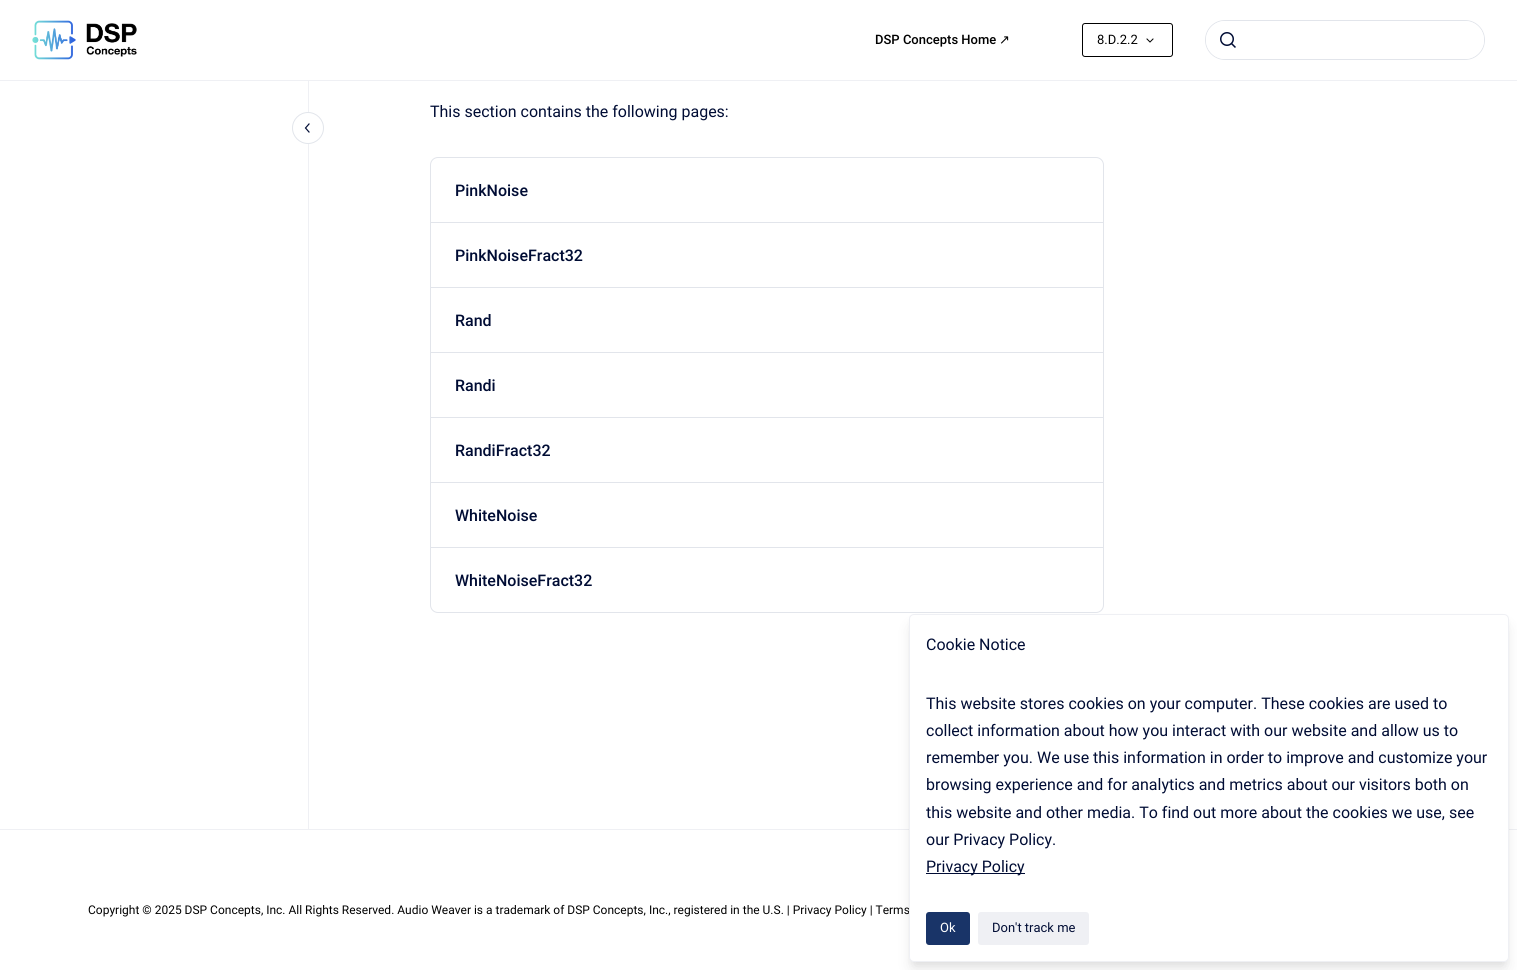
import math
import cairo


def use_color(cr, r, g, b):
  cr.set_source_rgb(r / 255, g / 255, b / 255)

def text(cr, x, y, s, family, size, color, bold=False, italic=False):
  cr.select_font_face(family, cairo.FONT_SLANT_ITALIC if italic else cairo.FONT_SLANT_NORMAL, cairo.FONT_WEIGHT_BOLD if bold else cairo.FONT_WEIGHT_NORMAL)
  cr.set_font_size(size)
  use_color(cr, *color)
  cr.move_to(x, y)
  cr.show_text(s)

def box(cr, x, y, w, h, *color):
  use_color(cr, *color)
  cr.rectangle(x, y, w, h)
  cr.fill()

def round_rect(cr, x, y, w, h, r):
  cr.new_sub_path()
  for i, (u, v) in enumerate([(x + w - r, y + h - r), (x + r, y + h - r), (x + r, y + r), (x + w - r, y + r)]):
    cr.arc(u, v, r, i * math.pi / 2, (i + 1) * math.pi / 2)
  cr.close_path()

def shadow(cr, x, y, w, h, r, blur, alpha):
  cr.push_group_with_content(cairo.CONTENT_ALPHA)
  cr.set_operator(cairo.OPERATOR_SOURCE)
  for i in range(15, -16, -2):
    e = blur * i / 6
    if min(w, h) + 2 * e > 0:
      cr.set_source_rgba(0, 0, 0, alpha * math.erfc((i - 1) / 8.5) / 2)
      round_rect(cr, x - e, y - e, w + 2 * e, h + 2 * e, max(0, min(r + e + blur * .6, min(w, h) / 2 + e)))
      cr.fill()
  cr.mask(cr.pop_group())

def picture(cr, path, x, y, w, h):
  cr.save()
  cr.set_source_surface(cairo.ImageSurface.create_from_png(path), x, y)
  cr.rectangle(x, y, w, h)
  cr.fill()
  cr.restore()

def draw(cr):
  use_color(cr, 255, 255, 255)
  cr.paint()
  box(cr, 0, 80, 1517, 1, 239, 240, 244)
  picture(cr, "img_01.png", 32, 20, 105, 40)
  round_rect(cr, 1082.5, 23.5, 90, 33, 2.5)
  use_color(cr, 0, 0, 0)
  cr.set_line_width(1)
  cr.stroke()
  cr.new_path()
  cr.move_to(1153, 39)
  cr.line_to(1150, 42)
  cr.line_to(1147, 39)
  cr.set_line_cap(cairo.LINE_CAP_SQUARE)
  cr.stroke()
  round_rect(cr, 1205.5, 20.5, 279, 39, 19.5)
  use_color(cr, 226, 229, 235)
  cr.set_line_cap(cairo.LINE_CAP_BUTT)
  cr.stroke()
  use_color(cr, 255, 255, 255)
  round_rect(cr, 1206, 21, 278, 38, 19)
  cr.fill()
  picture(cr, "img_02.png", 1220, 32, 16, 16)
  box(cr, 308, 81, 1, 748, 239, 240, 244)
  use_color(cr, 255, 255, 255)
  cr.new_path()
  cr.move_to(308, 144)
  cr.curve_to(299, 144, 292, 137, 292, 128)
  cr.curve_to(292, 119, 299, 112, 308, 112)
  cr.curve_to(317, 112, 324, 119, 324, 128)
  cr.curve_to(324, 137, 317, 144, 308, 144)
  cr.close_path()
  cr.fill()
  cr.new_path()
  cr.move_to(308, 143.5)
  cr.curve_to(299.5, 143.5, 292.5, 136.5, 292.5, 128)
  cr.curve_to(292.5, 119.5, 299.5, 112.5, 308, 112.5)
  cr.curve_to(316.5, 112.5, 323.5, 119.5, 323.5, 128)
  cr.curve_to(323.5, 136.5, 316.5, 143.5, 308, 143.5)
  cr.close_path()
  use_color(cr, 226, 229, 235)
  cr.stroke()
  cr.new_path()
  cr.move_to(309, 132)
  cr.line_to(305.5, 128)
  cr.line_to(309, 124)
  use_color(cr, 0, 12, 52)
  cr.set_line_width(1.2)
  cr.set_line_cap(cairo.LINE_CAP_SQUARE)
  cr.stroke()
  round_rect(cr, 430.5, 157.5, 673, 455, 7.5)
  use_color(cr, 226, 229, 235)
  cr.set_line_width(1)
  cr.set_line_cap(cairo.LINE_CAP_BUTT)
  cr.stroke()
  box(cr, 431, 222, 672, 1, 226, 229, 235)
  box(cr, 431, 287, 672, 1, 226, 229, 235)
  box(cr, 431, 352, 672, 1, 226, 229, 235)
  box(cr, 431, 417, 672, 1, 226, 229, 235)
  box(cr, 431, 482, 672, 1, 226, 229, 235)
  box(cr, 431, 547, 672, 1, 226, 229, 235)
  box(cr, 0, 829, 1517, 1, 239, 240, 244)
  use_color(cr, 0, 0, 0)
  shadow(cr, 911, 620, 596, 344, 3, 3, 0.05)
  shadow(cr, 912, 627, 594, 342, 2, 7.5, 0.1)
  text(cr, 875, 44, "DSP Concepts Home", "Roboto Medium", 13, (0, 0, 0))
  text(cr, 999, 44, "↗", "DejaVu Sans", 13, (0, 0, 0))
  text(cr, 1097, 44, "8.D.2.2", "Roboto", 13, (0, 0, 0))
  text(cr, 430, 117, "This section contains the following pages:", "Roboto", 16, (0, 12, 52))
  text(cr, 455, 196, "PinkNoise", "Roboto Medium", 16, (0, 12, 52))
  text(cr, 455, 261, "PinkNoiseFract32", "Roboto Medium", 16, (0, 12, 52))
  text(cr, 455, 326, "Rand", "Roboto Medium", 16, (0, 12, 52))
  text(cr, 455, 391, "Randi", "Roboto Medium", 16, (0, 12, 52))
  text(cr, 455, 456, "RandiFract32", "Roboto Medium", 16, (0, 12, 52))
  text(cr, 455, 521, "WhiteNoise", "Roboto Medium", 16, (0, 12, 52))
  text(cr, 455, 586, "WhiteNoiseFract32", "Roboto Medium", 16, (0, 12, 52))
  text(cr, 88, 914, "Copyright © 2025 DSP Concepts, Inc. All Rights Reserved. Audio Weaver is a trademark of DSP Concepts, Inc., registered in the U.S. | Privacy Policy | Terms", "Roboto", 12, (0, 0, 0))
  use_color(cr, 255, 255, 255)
  round_rect(cr, 909.5, 614.5, 599, 347, 4.5)
  cr.fill_preserve()
  use_color(cr, 239, 240, 244)
  cr.stroke()
  text(cr, 926, 650, "Cookie Notice", "Roboto", 16, (0, 12, 52))
  text(cr, 926, 709, "This website stores cookies on your computer. These cookies are used to", "Roboto", 16, (0, 12, 52))
  text(cr, 926, 736, "collect information about how you interact with our website and allow us to", "Roboto", 16, (0, 12, 52))
  text(cr, 926, 763, "remember you. We use this information in order to improve and customize your", "Roboto", 16, (0, 12, 52))
  text(cr, 926, 790, "browsing experience and for analytics and metrics about our visitors both on", "Roboto", 16, (0, 12, 52))
  text(cr, 926, 818, "this website and other media. To find out more about the cookies we use, see", "Roboto", 16, (0, 12, 52))
  text(cr, 926, 845, "our Privacy Policy.", "Roboto", 16, (0, 12, 52))
  box(cr, 926, 873, 99, 1, 0, 12, 52)
  text(cr, 926, 872, "Privacy Policy", "Roboto", 16, (0, 12, 52))
  use_color(cr, 25, 52, 104)
  round_rect(cr, 926, 912, 44, 33, 3)
  cr.fill()
  text(cr, 940, 932, "Ok", "Roboto", 13, (255, 255, 255))
  use_color(cr, 239, 240, 244)
  round_rect(cr, 978, 912, 111, 33, 3)
  cr.fill()
  text(cr, 992, 932, "Don't track me", "Roboto", 13, (0, 12, 52))


surface = cairo.ImageSurface(cairo.FORMAT_RGB24, 1517, 970)
cr = cairo.Context(surface)
options = cairo.FontOptions()
options.set_hint_metrics(cairo.HINT_METRICS_OFF)
options.set_hint_style(cairo.HINT_STYLE_NONE)
cr.set_font_options(options)
cr.set_miter_limit(4)
draw(cr)
surface.write_to_png("out.png")
